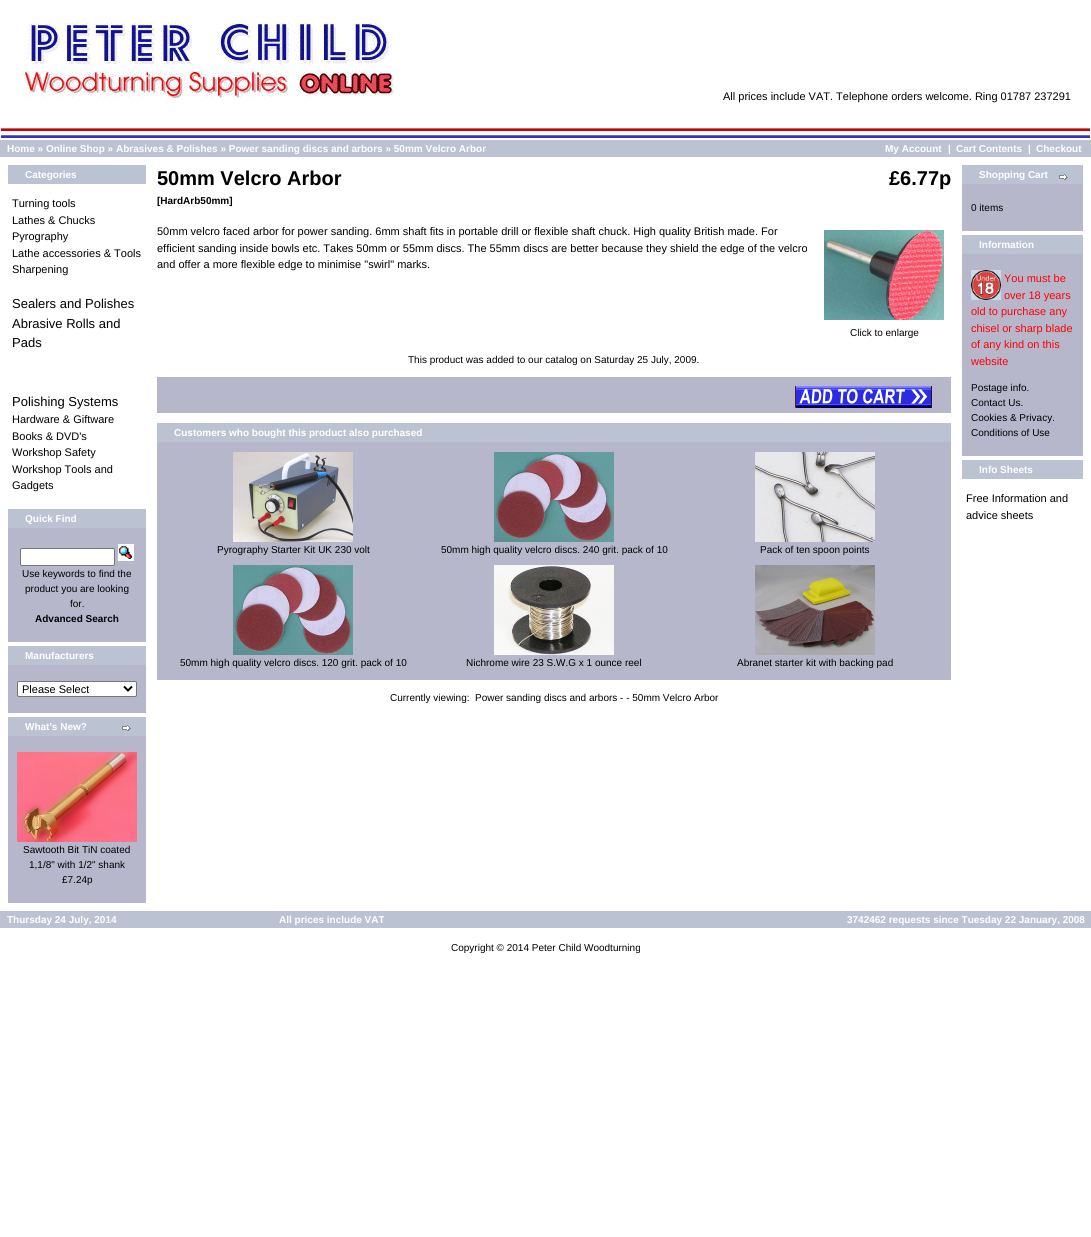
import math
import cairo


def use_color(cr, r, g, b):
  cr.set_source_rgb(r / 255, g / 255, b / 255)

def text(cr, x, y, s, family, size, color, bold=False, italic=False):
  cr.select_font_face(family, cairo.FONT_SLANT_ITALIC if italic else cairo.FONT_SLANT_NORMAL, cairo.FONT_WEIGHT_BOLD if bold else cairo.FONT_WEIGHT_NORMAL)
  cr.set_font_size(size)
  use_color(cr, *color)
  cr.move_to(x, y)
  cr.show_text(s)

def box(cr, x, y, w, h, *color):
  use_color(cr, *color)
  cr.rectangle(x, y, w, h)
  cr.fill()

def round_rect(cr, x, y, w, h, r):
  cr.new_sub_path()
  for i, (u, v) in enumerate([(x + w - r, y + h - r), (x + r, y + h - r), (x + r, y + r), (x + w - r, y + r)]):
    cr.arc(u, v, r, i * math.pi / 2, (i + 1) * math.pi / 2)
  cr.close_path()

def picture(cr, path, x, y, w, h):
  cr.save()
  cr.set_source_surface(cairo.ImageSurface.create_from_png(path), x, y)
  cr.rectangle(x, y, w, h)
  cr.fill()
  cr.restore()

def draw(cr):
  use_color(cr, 255, 255, 255)
  cr.paint()
  picture(cr, "img_01.png", 21, 22, 376, 81)
  picture(cr, "img_02.png", 1, 128, 1089, 10)
  box(cr, 0, 140, 1091, 17, 187, 195, 211)
  box(cr, 8, 165, 138, 19, 187, 195, 211)
  box(cr, 8, 509, 138, 19, 187, 195, 211)
  box(cr, 8, 528, 138, 114, 182, 183, 203)
  use_color(cr, 255, 255, 255)
  round_rect(cr, 20.5, 548.5, 94, 17, 1.5)
  cr.fill_preserve()
  use_color(cr, 118, 118, 118)
  cr.set_line_width(1)
  cr.stroke()
  picture(cr, "img_03.png", 118, 544, 16, 17)
  box(cr, 8, 646, 138, 19, 187, 195, 211)
  box(cr, 8, 665, 138, 48, 182, 183, 203)
  use_color(cr, 255, 255, 255)
  round_rect(cr, 17.5, 681.5, 119, 15, 1.5)
  cr.fill_preserve()
  use_color(cr, 118, 118, 118)
  cr.stroke()
  cr.new_path()
  cr.move_to(124, 686.5)
  cr.line_to(128, 690.5)
  cr.line_to(132, 686.5)
  use_color(cr, 0, 0, 0)
  cr.set_line_width(2)
  cr.stroke()
  box(cr, 8, 717, 138, 19, 187, 195, 211)
  picture(cr, "img_04.png", 122, 725, 9, 6)
  box(cr, 8, 736, 138, 167, 182, 183, 203)
  picture(cr, "img_05.png", 17, 752, 120, 90)
  picture(cr, "img_06.png", 824, 230, 120, 90)
  box(cr, 157, 377, 794, 36, 182, 183, 203)
  picture(cr, "img_07.png", 795, 386, 137, 22)
  box(cr, 157, 423, 794, 19, 187, 195, 211)
  box(cr, 157, 442, 794, 238, 182, 183, 203)
  picture(cr, "img_08.png", 233, 452, 120, 90)
  picture(cr, "img_09.png", 494, 452, 120, 90)
  picture(cr, "img_10.png", 755, 452, 120, 90)
  picture(cr, "img_09.png", 233, 565, 120, 90)
  picture(cr, "img_11.png", 494, 565, 120, 90)
  picture(cr, "img_12.png", 755, 565, 120, 90)
  box(cr, 962, 165, 121, 19, 187, 195, 211)
  picture(cr, "img_04.png", 1059, 174, 9, 6)
  box(cr, 962, 184, 121, 47, 182, 183, 203)
  box(cr, 962, 235, 121, 19, 187, 195, 211)
  box(cr, 962, 254, 121, 202, 182, 183, 203)
  picture(cr, "img_13.png", 971, 270, 30, 30)
  box(cr, 962, 460, 121, 19, 187, 195, 211)
  box(cr, 0, 911, 1091, 17, 187, 195, 211)
  text(cr, 723, 100, "All prices include VAT. Telephone orders welcome. Ring 01787 237291", "Liberation Sans", 11, (0, 0, 0))
  text(cr, 7, 152, "Home » Online Shop » Abrasives & Polishes » Power sanding discs and arbors » 50mm Velcro Arbor", "Liberation Sans", 10, (255, 255, 255), bold=True)
  text(cr, 885, 152, "My Account", "Liberation Sans", 10, (255, 255, 255), bold=True)
  text(cr, 948, 152, "|", "Liberation Sans", 10, (255, 255, 255), bold=True)
  text(cr, 956, 152, "Cart Contents", "Liberation Sans", 10, (255, 255, 255), bold=True)
  text(cr, 1028, 152, "|", "Liberation Sans", 10, (255, 255, 255), bold=True)
  text(cr, 1036, 152, "Checkout", "Liberation Sans", 10, (255, 255, 255), bold=True)
  text(cr, 25, 178, "Categories", "Liberation Sans", 10, (255, 255, 255), bold=True)
  text(cr, 12, 207, "Turning tools", "Liberation Sans", 11, (0, 0, 0))
  text(cr, 12, 224, "Lathes & Chucks", "Liberation Sans", 11, (0, 0, 0))
  text(cr, 12, 240, "Pyrography", "Liberation Sans", 11, (0, 0, 0))
  text(cr, 12, 257, "Lathe accessories & Tools", "Liberation Sans", 11, (0, 0, 0))
  text(cr, 12, 273, "Sharpening", "Liberation Sans", 11, (0, 0, 0))
  text(cr, 12, 308, "Sealers and Polishes", "Liberation Sans", 13, (0, 0, 0))
  text(cr, 12, 328, "Abrasive Rolls and", "Liberation Sans", 13, (0, 0, 0))
  text(cr, 12, 347, "Pads", "Liberation Sans", 13, (0, 0, 0))
  text(cr, 12, 406, "Polishing Systems", "Liberation Sans", 13, (0, 0, 0))
  text(cr, 12, 423, "Hardware & Giftware", "Liberation Sans", 11, (0, 0, 0))
  text(cr, 12, 440, "Books & DVD's", "Liberation Sans", 11, (0, 0, 0))
  text(cr, 12, 456, "Workshop Safety", "Liberation Sans", 11, (0, 0, 0))
  text(cr, 12, 473, "Workshop Tools and", "Liberation Sans", 11, (0, 0, 0))
  text(cr, 12, 489, "Gadgets", "Liberation Sans", 11, (0, 0, 0))
  text(cr, 25, 522, "Quick Find", "Liberation Sans", 10, (255, 255, 255), bold=True)
  text(cr, 22, 577, "Use keywords to find the", "Liberation Sans", 10, (0, 0, 0))
  text(cr, 25, 592, "product you are looking", "Liberation Sans", 10, (0, 0, 0))
  text(cr, 70, 607, "for.", "Liberation Sans", 10, (0, 0, 0))
  text(cr, 35, 622, "Advanced Search", "Liberation Sans", 10, (0, 0, 0), bold=True)
  text(cr, 25, 659, "Manufacturers", "Liberation Sans", 10, (255, 255, 255), bold=True)
  text(cr, 22, 693, "Please Select", "Liberation Sans", 11, (0, 0, 0))
  text(cr, 25, 730, "What's New?", "Liberation Sans", 10, (255, 255, 255), bold=True)
  text(cr, 23, 853, "Sawtooth Bit TiN coated", "Liberation Sans", 10, (0, 0, 0))
  text(cr, 29, 868, "1,1/8\" with 1/2\" shank", "Liberation Sans", 10, (0, 0, 0))
  text(cr, 62, 883, "£7.24p", "Liberation Sans", 10, (0, 0, 0))
  text(cr, 157, 185, "50mm Velcro Arbor", "Liberation Sans", 20, (0, 0, 0), bold=True)
  text(cr, 157, 204, "[HardArb50mm]", "Liberation Sans", 10, (0, 0, 0), bold=True)
  text(cr, 889, 185, "£6.77p", "Liberation Sans", 20, (0, 0, 0), bold=True)
  text(cr, 157, 235, "50mm velcro faced arbor for power sanding. 6mm shaft fits in portable drill or flexible shaft chuck. High quality British made. For", "Liberation Sans", 11, (0, 0, 0))
  text(cr, 157, 252, "efficient sanding inside bowls etc. Takes 50mm or 55mm discs. The 55mm discs are better because they shield the edge of the velcro", "Liberation Sans", 11, (0, 0, 0))
  text(cr, 157, 268, "and offer a more flexible edge to minimise \"swirl\" marks.", "Liberation Sans", 11, (0, 0, 0))
  text(cr, 850, 336, "Click to enlarge", "Liberation Sans", 10, (0, 0, 0))
  text(cr, 408, 363, "This product was added to our catalog on Saturday 25 July, 2009.", "Liberation Sans", 10, (0, 0, 0))
  text(cr, 174, 436, "Customers who bought this product also purchased", "Liberation Sans", 10, (255, 255, 255), bold=True)
  text(cr, 217, 553, "Pyrography Starter Kit UK 230 volt", "Liberation Sans", 10, (0, 0, 0))
  text(cr, 441, 553, "50mm high quality velcro discs. 240 grit. pack of 10", "Liberation Sans", 10, (0, 0, 0))
  text(cr, 760, 553, "Pack of ten spoon points", "Liberation Sans", 10, (0, 0, 0))
  text(cr, 180, 666, "50mm high quality velcro discs. 120 grit. pack of 10", "Liberation Sans", 10, (0, 0, 0))
  text(cr, 466, 666, "Nichrome wire 23 S.W.G x 1 ounce reel", "Liberation Sans", 10, (0, 0, 0))
  text(cr, 737, 666, "Abranet starter kit with backing pad", "Liberation Sans", 10, (0, 0, 0))
  text(cr, 390, 701, "Currently viewing:", "Liberation Sans", 10, (0, 0, 0))
  text(cr, 475, 701, "Power sanding discs and arbors - - 50mm Velcro Arbor", "Liberation Sans", 10, (0, 0, 0))
  text(cr, 979, 178, "Shopping Cart", "Liberation Sans", 10, (255, 255, 255), bold=True)
  text(cr, 971, 211, "0 items", "Liberation Sans", 10, (0, 0, 0))
  text(cr, 979, 248, "Information", "Liberation Sans", 10, (255, 255, 255), bold=True)
  text(cr, 1004, 282, "You must be", "Liberation Sans", 11, (255, 0, 0))
  text(cr, 1004, 299, "over 18 years", "Liberation Sans", 11, (255, 0, 0))
  text(cr, 971, 315, "old to purchase any", "Liberation Sans", 11, (255, 0, 0))
  text(cr, 971, 332, "chisel or sharp blade", "Liberation Sans", 11, (255, 0, 0))
  text(cr, 971, 348, "of any kind on this", "Liberation Sans", 11, (255, 0, 0))
  text(cr, 971, 365, "website", "Liberation Sans", 11, (255, 0, 0))
  text(cr, 971, 391, "Postage info.", "Liberation Sans", 10, (0, 0, 0))
  text(cr, 971, 406, "Contact Us.", "Liberation Sans", 10, (0, 0, 0))
  text(cr, 971, 421, "Cookies & Privacy.", "Liberation Sans", 10, (0, 0, 0))
  text(cr, 971, 436, "Conditions of Use", "Liberation Sans", 10, (0, 0, 0))
  text(cr, 979, 473, "Info Sheets", "Liberation Sans", 10, (255, 255, 255), bold=True)
  text(cr, 966, 502, "Free Information and", "Liberation Sans", 11, (0, 0, 0))
  text(cr, 966, 519, "advice sheets", "Liberation Sans", 11, (0, 0, 0))
  text(cr, 7, 923, "Thursday 24 July, 2014", "Liberation Sans", 10, (255, 255, 255), bold=True)
  text(cr, 279, 923, "All prices include VAT", "Liberation Sans", 10, (255, 255, 255), bold=True)
  text(cr, 847, 923, "3742462 requests since Tuesday 22 January, 2008", "Liberation Sans", 10, (255, 255, 255), bold=True)
  text(cr, 451, 951, "Copyright © 2014 Peter Child Woodturning", "Liberation Sans", 10, (0, 0, 0))


surface = cairo.ImageSurface(cairo.FORMAT_RGB24, 1091, 1237)
cr = cairo.Context(surface)
options = cairo.FontOptions()
options.set_hint_metrics(cairo.HINT_METRICS_OFF)
options.set_hint_style(cairo.HINT_STYLE_NONE)
cr.set_font_options(options)
cr.set_miter_limit(4)
draw(cr)
surface.write_to_png("out.png")
